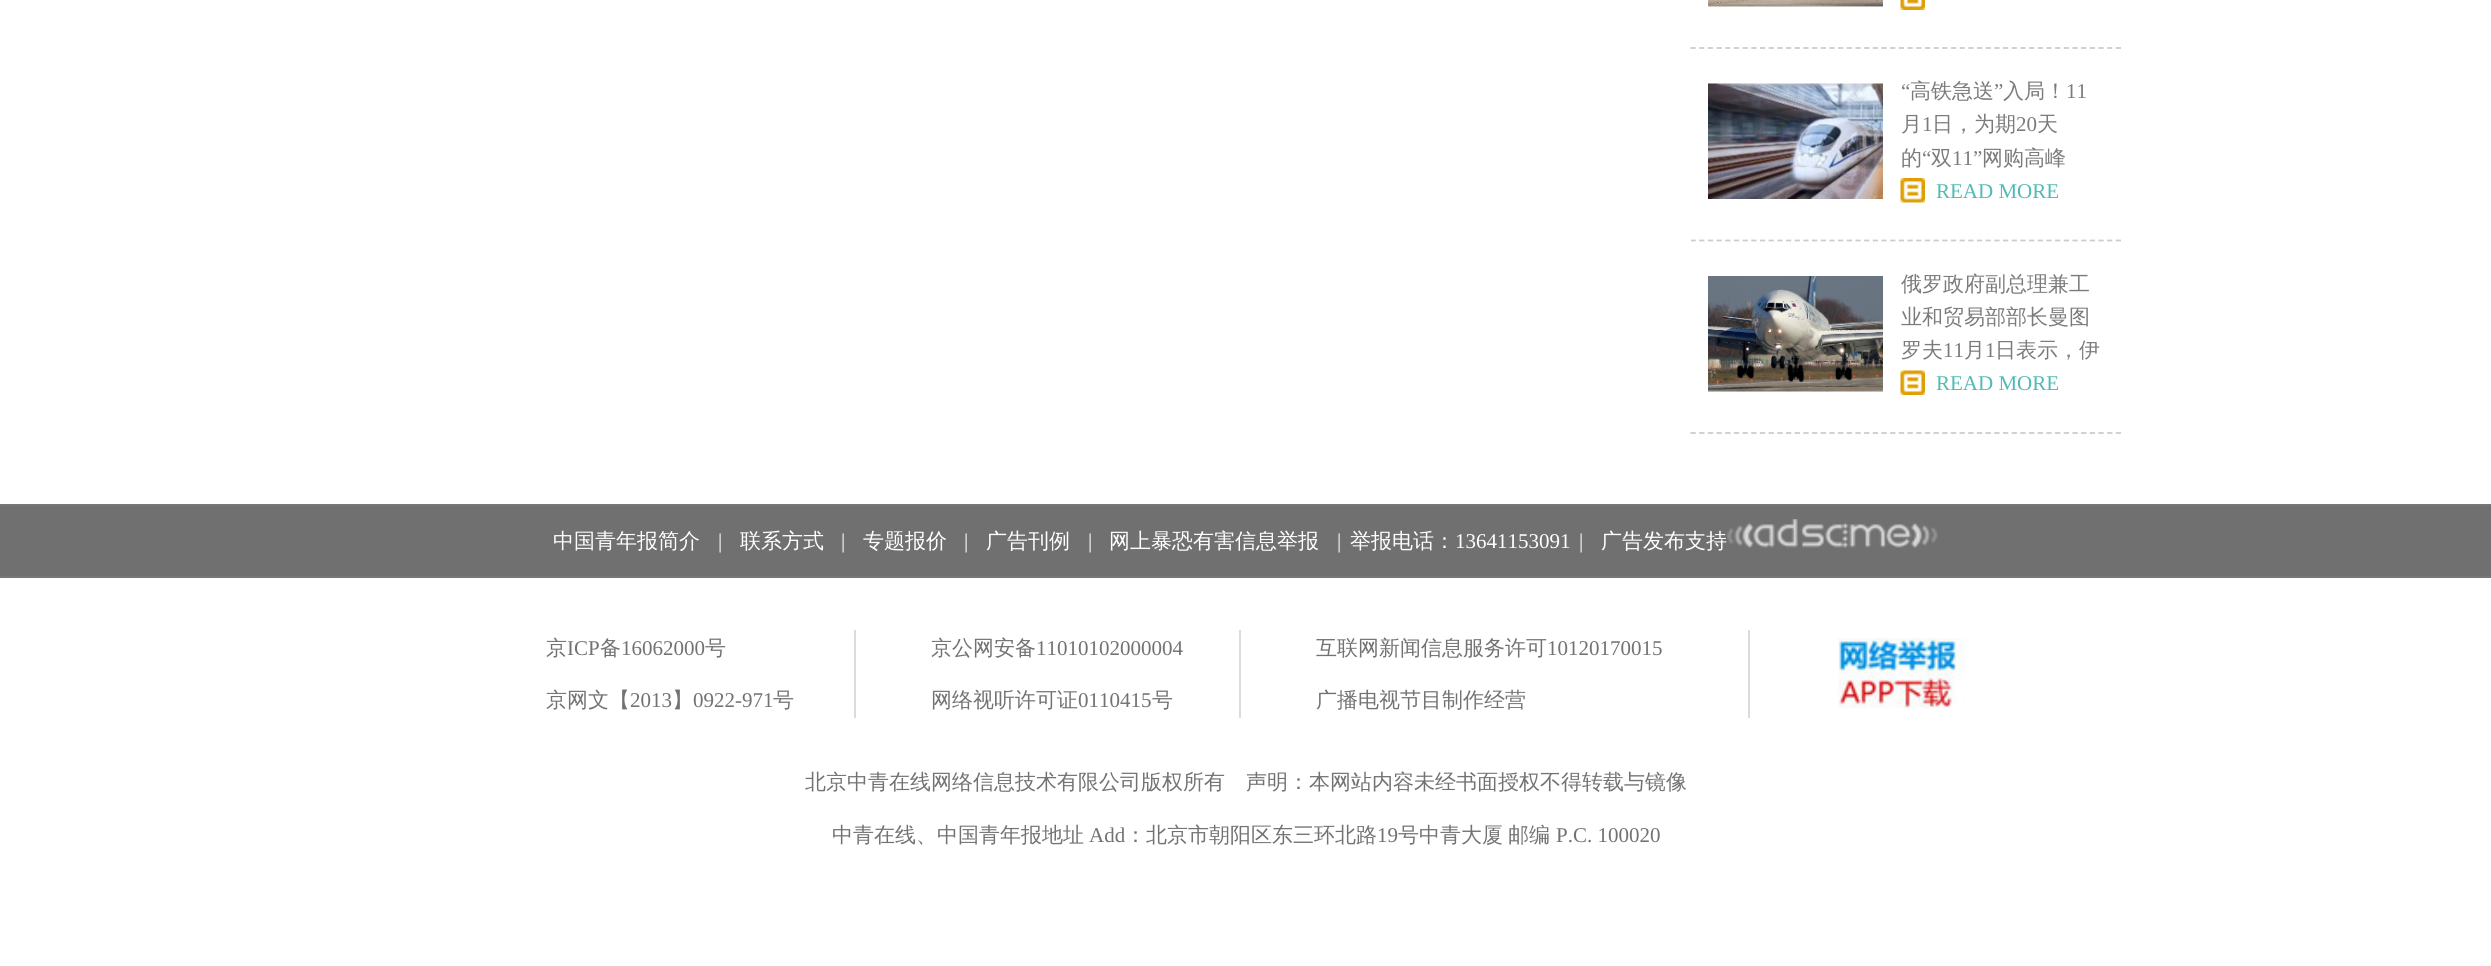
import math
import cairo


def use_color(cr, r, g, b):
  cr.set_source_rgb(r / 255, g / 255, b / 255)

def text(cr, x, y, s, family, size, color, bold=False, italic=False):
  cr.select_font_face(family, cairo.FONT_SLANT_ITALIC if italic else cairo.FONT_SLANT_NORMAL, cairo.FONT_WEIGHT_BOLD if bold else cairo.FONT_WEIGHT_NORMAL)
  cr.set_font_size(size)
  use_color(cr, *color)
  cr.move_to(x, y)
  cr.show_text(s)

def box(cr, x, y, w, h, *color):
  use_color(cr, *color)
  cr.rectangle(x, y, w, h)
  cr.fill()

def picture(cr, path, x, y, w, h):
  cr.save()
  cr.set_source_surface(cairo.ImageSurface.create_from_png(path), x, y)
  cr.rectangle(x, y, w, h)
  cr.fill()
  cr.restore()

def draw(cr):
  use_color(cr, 255, 255, 255)
  cr.paint()
  cr.new_path()
  cr.move_to(1690.5, 48)
  cr.line_to(2121, 48)
  use_color(cr, 204, 204, 204)
  cr.set_line_width(1.8)
  cr.set_dash([5.25, 3.43])
  cr.stroke()
  picture(cr, "img_01.png", 1708, 0, 175, 7)
  picture(cr, "img_02.png", 1900, 0, 25, 10)
  cr.save()
  cr.rectangle(1691, 0, 430, 434)
  cr.clip()
  cr.new_path()
  cr.move_to(1690.5, 240.5)
  cr.line_to(2121, 240.5)
  cr.stroke()
  cr.restore()
  picture(cr, "img_03.png", 1708, 83, 175, 116)
  picture(cr, "img_04.png", 1900, 178, 25, 25)
  cr.new_path()
  cr.move_to(1690.5, 433)
  cr.line_to(2121, 433)
  cr.stroke()
  picture(cr, "img_05.png", 1708, 276, 175, 116)
  picture(cr, "img_06.png", 1900, 370, 25, 25)
  box(cr, 0, 506, 2491, 70, 112, 112, 112)
  box(cr, 0, 504, 2491, 2, 120, 120, 120)
  box(cr, 0, 576, 2491, 2, 120, 120, 120)
  picture(cr, "img_07.png", 1727, 519, 211, 29)
  box(cr, 854, 630, 2, 88, 219, 219, 219)
  box(cr, 1239, 630, 2, 88, 219, 219, 219)
  box(cr, 1748, 630, 2, 88, 219, 219, 219)
  picture(cr, "img_08.png", 1838, 638, 127, 71)
  text(cr, 1901, 98, "“", "Liberation Serif", 21, (123, 123, 123))
  text(cr, 1910, 98, "高铁急送", "WenQuanYi Zen Hei Medium", 21, (123, 123, 123))
  text(cr, 1994, 98, "”", "Liberation Serif", 21, (123, 123, 123))
  text(cr, 2003, 98, "入局！", "WenQuanYi Zen Hei Medium", 21, (123, 123, 123))
  text(cr, 2066, 98, "11", "Liberation Serif", 21, (123, 123, 123))
  text(cr, 1901, 131, "月", "WenQuanYi Zen Hei Medium", 21, (123, 123, 123))
  text(cr, 1922, 131, "1", "Liberation Serif", 21, (123, 123, 123))
  text(cr, 1932, 131, "日，为期", "WenQuanYi Zen Hei Medium", 21, (123, 123, 123))
  text(cr, 2016, 131, "20", "Liberation Serif", 21, (123, 123, 123))
  text(cr, 2037, 131, "天", "WenQuanYi Zen Hei Medium", 21, (123, 123, 123))
  text(cr, 1901, 165, "的", "WenQuanYi Zen Hei Medium", 21, (123, 123, 123))
  text(cr, 1922, 165, "“", "Liberation Serif", 21, (123, 123, 123))
  text(cr, 1931, 165, "双", "WenQuanYi Zen Hei Medium", 21, (123, 123, 123))
  text(cr, 1952, 165, "11”", "Liberation Serif", 21, (123, 123, 123))
  text(cr, 1982, 165, "网购高峰", "WenQuanYi Zen Hei Medium", 21, (123, 123, 123))
  text(cr, 1936, 198, "READ MORE", "Liberation Serif", 21, (80, 187, 181))
  text(cr, 1901, 291, "俄罗政府副总理兼工", "WenQuanYi Zen Hei Medium", 21, (123, 123, 123))
  text(cr, 1901, 324, "业和贸易部部长曼图", "WenQuanYi Zen Hei Medium", 21, (123, 123, 123))
  text(cr, 1901, 357, "罗夫", "WenQuanYi Zen Hei Medium", 21, (123, 123, 123))
  text(cr, 1943, 357, "11", "Liberation Serif", 21, (123, 123, 123))
  text(cr, 1964, 357, "月", "WenQuanYi Zen Hei Medium", 21, (123, 123, 123))
  text(cr, 1985, 357, "1", "Liberation Serif", 21, (123, 123, 123))
  text(cr, 1995, 357, "日表示，伊", "WenQuanYi Zen Hei Medium", 21, (123, 123, 123))
  text(cr, 1936, 390, "READ MORE", "Liberation Serif", 21, (80, 187, 181))
  text(cr, 553, 548, "中国青年报简介", "WenQuanYi Zen Hei Medium", 21, (255, 255, 255))
  text(cr, 718, 548, "|", "Liberation Serif", 21, (255, 255, 255))
  text(cr, 740, 548, "联系方式", "WenQuanYi Zen Hei Medium", 21, (255, 255, 255))
  text(cr, 841, 548, "|", "Liberation Serif", 21, (255, 255, 255))
  text(cr, 863, 548, "专题报价", "WenQuanYi Zen Hei Medium", 21, (255, 255, 255))
  text(cr, 964, 548, "|", "Liberation Serif", 21, (255, 255, 255))
  text(cr, 986, 548, "广告刊例", "WenQuanYi Zen Hei Medium", 21, (255, 255, 255))
  text(cr, 1088, 548, "|", "Liberation Serif", 21, (255, 255, 255))
  text(cr, 1109, 548, "网上暴恐有害信息举报", "WenQuanYi Zen Hei Medium", 21, (255, 255, 255))
  text(cr, 1337, 548, "|", "Liberation Serif", 21, (255, 255, 255))
  text(cr, 1350, 548, "举报电话：", "WenQuanYi Zen Hei Medium", 21, (255, 255, 255))
  text(cr, 1455, 548, "13641153091", "Liberation Serif", 21, (255, 255, 255))
  text(cr, 1579, 548, "|", "Liberation Serif", 21, (255, 255, 255))
  text(cr, 1601, 548, "广告发布支持", "WenQuanYi Zen Hei Medium", 21, (255, 255, 255))
  text(cr, 546, 655, "京", "WenQuanYi Zen Hei Medium", 21, (114, 114, 114))
  text(cr, 567, 655, "ICP", "Liberation Serif", 21, (114, 114, 114))
  text(cr, 600, 655, "备", "WenQuanYi Zen Hei Medium", 21, (114, 114, 114))
  text(cr, 621, 655, "16062000", "Liberation Serif", 21, (114, 114, 114))
  text(cr, 705, 655, "号", "WenQuanYi Zen Hei Medium", 21, (114, 114, 114))
  text(cr, 546, 707, "京网文【", "WenQuanYi Zen Hei Medium", 21, (114, 114, 114))
  text(cr, 630, 707, "2013", "Liberation Serif", 21, (114, 114, 114))
  text(cr, 672, 707, "】", "WenQuanYi Zen Hei Medium", 21, (114, 114, 114))
  text(cr, 693, 707, "0922-971", "Liberation Serif", 21, (114, 114, 114))
  text(cr, 773, 707, "号", "WenQuanYi Zen Hei Medium", 21, (114, 114, 114))
  text(cr, 931, 655, "京公网安备", "WenQuanYi Zen Hei Medium", 21, (114, 114, 114))
  text(cr, 1036, 655, "11010102000004", "Liberation Serif", 21, (114, 114, 114))
  text(cr, 931, 707, "网络视听许可证", "WenQuanYi Zen Hei Medium", 21, (114, 114, 114))
  text(cr, 1078, 707, "0110415", "Liberation Serif", 21, (114, 114, 114))
  text(cr, 1152, 707, "号", "WenQuanYi Zen Hei Medium", 21, (114, 114, 114))
  text(cr, 1316, 655, "互联网新闻信息服务许可", "WenQuanYi Zen Hei Medium", 21, (114, 114, 114))
  text(cr, 1547, 655, "10120170015", "Liberation Serif", 21, (114, 114, 114))
  text(cr, 1316, 707, "广播电视节目制作经营", "WenQuanYi Zen Hei Medium", 21, (114, 114, 114))
  text(cr, 805, 789, "北京中青在线网络信息技术有限公司版权所有　声明：本网站内容未经书面授权不得转载与镜像", "WenQuanYi Zen Hei Medium", 21, (114, 114, 114))
  text(cr, 832, 842, "中青在线、中国青年报地址", "WenQuanYi Zen Hei Medium", 21, (114, 114, 114))
  text(cr, 1089, 842, "Add", "Liberation Serif", 21, (114, 114, 114))
  text(cr, 1125, 842, "：北京市朝阳区东三环北路", "WenQuanYi Zen Hei Medium", 21, (114, 114, 114))
  text(cr, 1377, 842, "19", "Liberation Serif", 21, (114, 114, 114))
  text(cr, 1398, 842, "号中青大厦", "WenQuanYi Zen Hei Medium", 21, (114, 114, 114))
  text(cr, 1508, 842, "邮编", "WenQuanYi Zen Hei Medium", 21, (114, 114, 114))
  text(cr, 1556, 842, "P.C. 100020", "Liberation Serif", 21, (114, 114, 114))


surface = cairo.ImageSurface(cairo.FORMAT_RGB24, 2491, 966)
cr = cairo.Context(surface)
options = cairo.FontOptions()
options.set_hint_metrics(cairo.HINT_METRICS_OFF)
options.set_hint_style(cairo.HINT_STYLE_NONE)
cr.set_font_options(options)
cr.set_miter_limit(4)
draw(cr)
surface.write_to_png("out.png")
